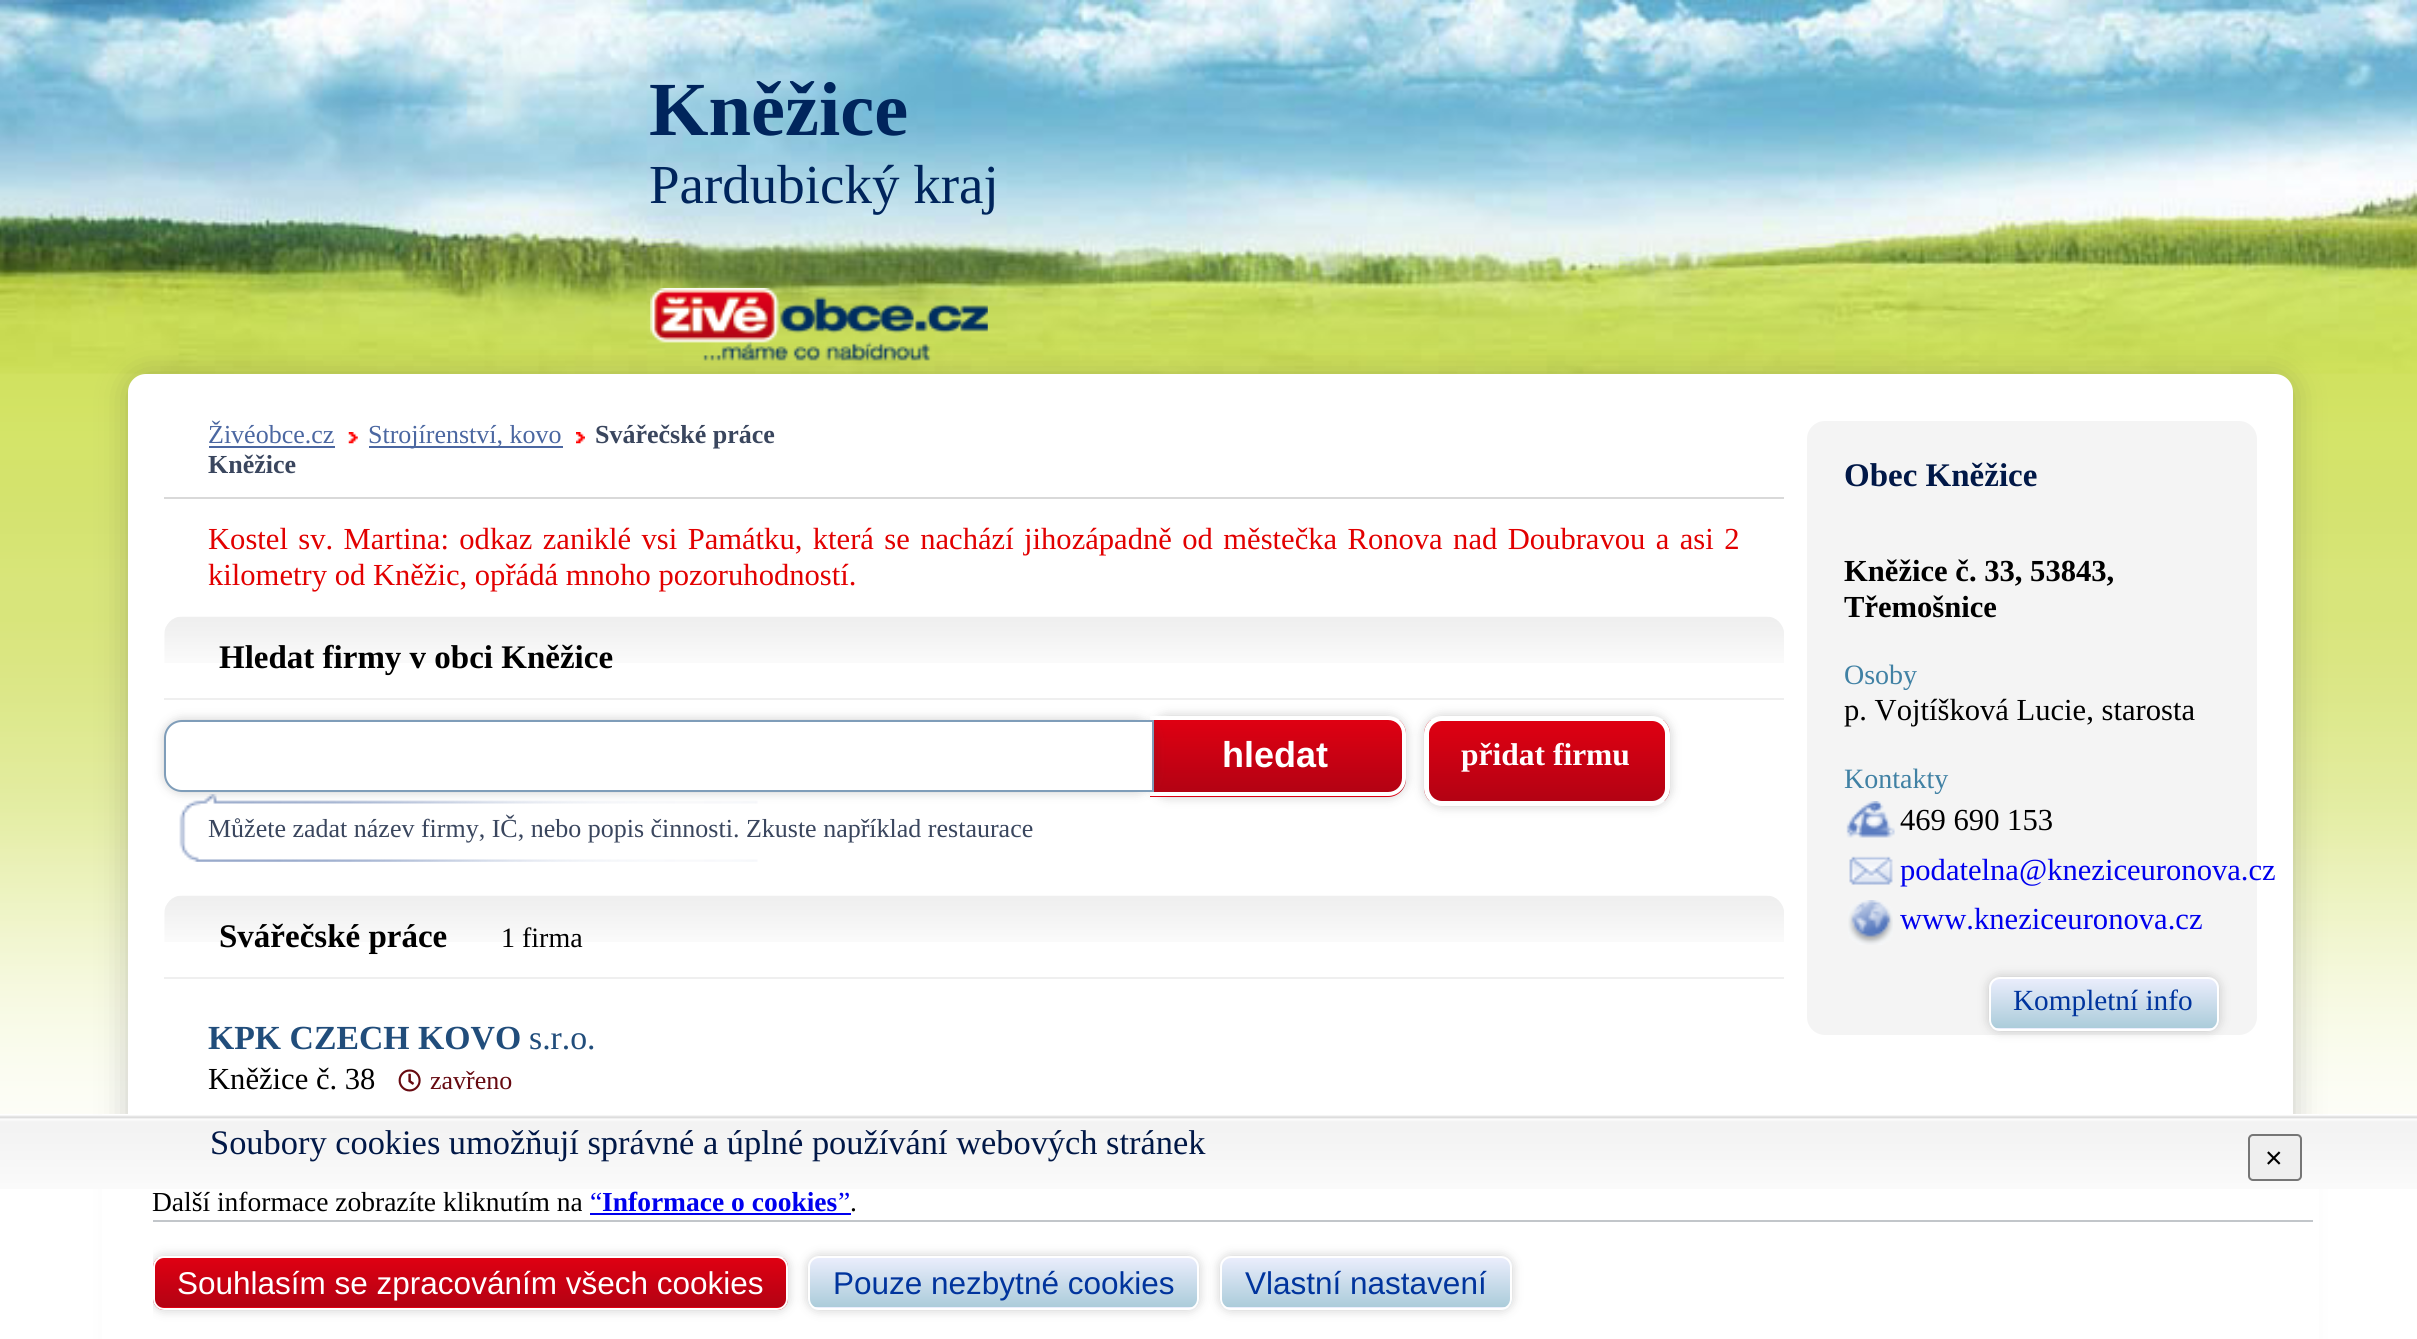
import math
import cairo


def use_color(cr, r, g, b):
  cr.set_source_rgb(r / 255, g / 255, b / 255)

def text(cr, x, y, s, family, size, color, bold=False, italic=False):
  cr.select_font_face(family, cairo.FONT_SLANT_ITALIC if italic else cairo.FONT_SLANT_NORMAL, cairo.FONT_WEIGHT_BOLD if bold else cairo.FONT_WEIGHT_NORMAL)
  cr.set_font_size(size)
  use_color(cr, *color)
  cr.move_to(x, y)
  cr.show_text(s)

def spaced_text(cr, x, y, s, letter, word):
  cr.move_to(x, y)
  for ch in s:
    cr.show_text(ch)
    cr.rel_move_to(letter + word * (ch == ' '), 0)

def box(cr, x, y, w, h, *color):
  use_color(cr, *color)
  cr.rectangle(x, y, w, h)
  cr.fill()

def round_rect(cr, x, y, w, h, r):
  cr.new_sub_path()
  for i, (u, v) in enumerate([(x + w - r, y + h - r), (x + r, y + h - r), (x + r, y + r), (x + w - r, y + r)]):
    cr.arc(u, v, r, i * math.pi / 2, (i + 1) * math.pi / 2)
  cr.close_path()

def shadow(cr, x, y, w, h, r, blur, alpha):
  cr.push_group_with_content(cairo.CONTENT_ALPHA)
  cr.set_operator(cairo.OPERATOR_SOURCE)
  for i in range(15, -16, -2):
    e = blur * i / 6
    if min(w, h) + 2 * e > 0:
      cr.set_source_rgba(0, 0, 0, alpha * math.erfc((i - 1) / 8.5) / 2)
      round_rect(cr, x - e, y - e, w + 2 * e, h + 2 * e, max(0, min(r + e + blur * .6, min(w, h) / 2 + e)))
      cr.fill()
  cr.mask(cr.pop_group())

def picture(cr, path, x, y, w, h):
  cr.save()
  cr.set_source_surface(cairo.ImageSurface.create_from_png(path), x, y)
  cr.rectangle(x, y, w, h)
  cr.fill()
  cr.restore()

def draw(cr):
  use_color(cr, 255, 255, 255)
  cr.paint()
  picture(cr, "img_01.png", 0, 373, 2417, 741)
  picture(cr, "img_02.png", 0, 0, 2417, 374)
  picture(cr, "img_03.png", 650, 288, 338, 73)
  use_color(cr, 50, 50, 50)
  shadow(cr, 128, 374, 2165, 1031, 18, 16, 0.25)
  use_color(cr, 255, 255, 255)
  round_rect(cr, 129, 375, 2163, 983, 17)
  cr.fill_preserve()
  cr.stroke()
  box(cr, 164, 497, 1620, 2, 217, 217, 217)
  box(cr, 209, 446, 126, 2, 75, 103, 161)
  picture(cr, "img_04.png", 348, 432, 10, 12)
  box(cr, 369, 446, 194, 2, 75, 103, 161)
  picture(cr, "img_05.png", 576, 432, 9, 12)
  picture(cr, "img_06.png", 164, 616, 1620, 47)
  use_color(cr, 50, 50, 50)
  shadow(cr, 1150, 716, 256, 81, 18, 5.5, 0.25)
  shadow(cr, 1424, 716, 246, 90, 18, 5.5, 0.25)
  box(cr, 164, 698, 1620, 2, 239, 239, 239)
  cr.save()
  cr.new_path()
  cr.move_to(1150, 716)
  cr.line_to(1388, 716)
  cr.curve_to(1398, 716, 1406, 724, 1406, 734)
  cr.line_to(1406, 779)
  cr.curve_to(1406, 789, 1398, 797, 1388, 797)
  cr.line_to(1150, 797)
  cr.close_path()
  cr.clip()
  gradient = cairo.LinearGradient(1276, 720, 1276, 792)
  gradient.add_color_stop_rgba(0, 0.875, 0, 0.071, 1)
  gradient.add_color_stop_rgba(1, 0.702, 0.008, 0.075, 1)
  cr.set_source(gradient)
  cr.rectangle(1154, 720, 252, 72)
  cr.fill()
  gradient = cairo.LinearGradient(1276, 792, 1276, 864)
  gradient.add_color_stop_rgba(0, 0.875, 0, 0.071, 1)
  gradient.add_color_stop_rgba(1, 0.702, 0.008, 0.075, 1)
  cr.set_source(gradient)
  cr.rectangle(1150, 792, 256, 5)
  cr.fill()
  cr.restore()
  use_color(cr, 255, 255, 255)
  cr.set_fill_rule(cairo.FILL_RULE_EVEN_ODD)
  cr.new_path()
  cr.move_to(1150, 716)
  cr.line_to(1388, 716)
  cr.curve_to(1398, 716, 1406, 724, 1406, 734)
  cr.line_to(1406, 778)
  cr.curve_to(1406, 788, 1398, 796, 1388, 796)
  cr.line_to(1150, 796)
  cr.close_path()
  cr.move_to(1150, 720)
  cr.line_to(1388, 720)
  cr.curve_to(1396, 720, 1402, 726, 1402, 734)
  cr.line_to(1402, 778)
  cr.curve_to(1402, 786, 1396, 792, 1388, 792)
  cr.line_to(1150, 792)
  cr.close_path()
  cr.fill()
  picture(cr, "img_07.png", 179, 794, 579, 68)
  use_color(cr, 50, 50, 50)
  shadow(cr, 164, 720, 990, 72, 18, 5.5, 0.25)
  use_color(cr, 255, 255, 255)
  cr.new_path()
  cr.move_to(182, 721)
  cr.line_to(1153, 721)
  cr.line_to(1153, 791)
  cr.line_to(182, 791)
  cr.curve_to(172.5, 791, 165, 783.5, 165, 774)
  cr.line_to(165, 738)
  cr.curve_to(165, 728.5, 172.5, 721, 182, 721)
  cr.close_path()
  cr.fill_preserve()
  use_color(cr, 127, 157, 185)
  cr.stroke()
  cr.save()
  cr.set_fill_rule(cairo.FILL_RULE_WINDING)
  round_rect(cr, 1424, 716, 246, 90, 18)
  cr.clip()
  gradient = cairo.LinearGradient(1547, 720, 1547, 801)
  gradient.add_color_stop_rgba(0, 0.875, 0, 0.071, 1)
  gradient.add_color_stop_rgba(1, 0.702, 0.008, 0.075, 1)
  cr.set_source(gradient)
  cr.rectangle(1424, 720, 246, 81)
  cr.fill()
  cr.restore()
  round_rect(cr, 1426.5, 718.5, 241, 85, 15.5)
  use_color(cr, 255, 255, 255)
  cr.set_line_width(5)
  cr.stroke()
  picture(cr, "img_06.png", 164, 895, 1620, 47)
  box(cr, 164, 977, 1620, 2, 239, 239, 239)
  picture(cr, "img_08.png", 398, 1069, 23, 23)
  use_color(cr, 244, 244, 244)
  round_rect(cr, 1807, 421, 450, 614, 18)
  cr.fill()
  picture(cr, "img_09.png", 1846, 801, 49, 37)
  picture(cr, "img_10.png", 1849, 856, 44, 29)
  picture(cr, "img_11.png", 1848, 900, 45, 45)
  use_color(cr, 50, 50, 50)
  shadow(cr, 1989, 977, 230, 54, 11, 5.5, 0.25)
  cr.save()
  cr.set_fill_rule(cairo.FILL_RULE_WINDING)
  round_rect(cr, 1989, 977, 230, 54, 11)
  cr.clip()
  gradient = cairo.LinearGradient(2104, 979, 2104, 1028)
  gradient.add_color_stop_rgba(0, 0.918, 0.929, 0.988, 1)
  gradient.add_color_stop_rgba(1, 0.671, 0.8, 0.855, 1)
  cr.set_source(gradient)
  cr.rectangle(1989, 979, 230, 49)
  cr.fill()
  gradient = cairo.LinearGradient(2104, 1028, 2104, 1078)
  gradient.add_color_stop_rgba(0, 0.918, 0.929, 0.988, 1)
  gradient.add_color_stop_rgba(1, 0.671, 0.8, 0.855, 1)
  cr.set_source(gradient)
  cr.rectangle(1989, 1028, 230, 3)
  cr.fill()
  cr.restore()
  round_rect(cr, 1990, 978, 228, 52, 10)
  use_color(cr, 255, 255, 255)
  cr.set_line_width(2)
  cr.stroke()
  box(cr, 102, 1114, 2217, 225, 255, 255, 255)
  picture(cr, "img_12.png", 0, 1115, 2417, 74)
  use_color(cr, 239, 239, 239)
  round_rect(cr, 2249, 1135, 52, 45, 4)
  cr.fill_preserve()
  use_color(cr, 118, 118, 118)
  cr.stroke()
  box(cr, 590, 1213, 261, 2, 0, 0, 238)
  box(cr, 153, 1220, 2160, 2, 194, 198, 202)
  cr.save()
  cr.set_fill_rule(cairo.FILL_RULE_WINDING)
  cr.rectangle(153, 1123, 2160, 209)
  cr.clip()
  use_color(cr, 50, 50, 50)
  shadow(cr, 153, 1256, 635, 54, 11, 5.5, 0.25)
  cr.restore()
  cr.save()
  cr.set_fill_rule(cairo.FILL_RULE_WINDING)
  round_rect(cr, 153, 1256, 635, 54, 11)
  cr.clip()
  gradient = cairo.LinearGradient(470, 1258, 470, 1307)
  gradient.add_color_stop_rgba(0, 0.875, 0, 0.071, 1)
  gradient.add_color_stop_rgba(1, 0.702, 0.008, 0.075, 1)
  cr.set_source(gradient)
  cr.rectangle(153, 1258, 635, 49)
  cr.fill()
  gradient = cairo.LinearGradient(470, 1307, 470, 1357)
  gradient.add_color_stop_rgba(0, 0.875, 0, 0.071, 1)
  gradient.add_color_stop_rgba(1, 0.702, 0.008, 0.075, 1)
  cr.set_source(gradient)
  cr.rectangle(153, 1307, 635, 3)
  cr.fill()
  cr.restore()
  round_rect(cr, 154, 1257, 633, 52, 10)
  use_color(cr, 255, 255, 255)
  cr.stroke()
  use_color(cr, 50, 50, 50)
  shadow(cr, 808, 1256, 391, 54, 11, 5.5, 0.25)
  cr.save()
  cr.set_fill_rule(cairo.FILL_RULE_WINDING)
  round_rect(cr, 808, 1256, 391, 54, 11)
  cr.clip()
  gradient = cairo.LinearGradient(1004, 1258, 1004, 1307)
  gradient.add_color_stop_rgba(0, 0.918, 0.929, 0.988, 1)
  gradient.add_color_stop_rgba(1, 0.671, 0.8, 0.855, 1)
  cr.set_source(gradient)
  cr.rectangle(808, 1258, 391, 49)
  cr.fill()
  gradient = cairo.LinearGradient(1004, 1307, 1004, 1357)
  gradient.add_color_stop_rgba(0, 0.918, 0.929, 0.988, 1)
  gradient.add_color_stop_rgba(1, 0.671, 0.8, 0.855, 1)
  cr.set_source(gradient)
  cr.rectangle(808, 1307, 391, 3)
  cr.fill()
  cr.restore()
  round_rect(cr, 809, 1257, 389, 52, 10)
  use_color(cr, 255, 255, 255)
  cr.stroke()
  use_color(cr, 50, 50, 50)
  shadow(cr, 1220, 1256, 292, 54, 11, 5.5, 0.25)
  cr.save()
  cr.set_fill_rule(cairo.FILL_RULE_WINDING)
  round_rect(cr, 1220, 1256, 292, 54, 11)
  cr.clip()
  gradient = cairo.LinearGradient(1366, 1258, 1366, 1307)
  gradient.add_color_stop_rgba(0, 0.918, 0.929, 0.988, 1)
  gradient.add_color_stop_rgba(1, 0.671, 0.8, 0.855, 1)
  cr.set_source(gradient)
  cr.rectangle(1220, 1258, 292, 49)
  cr.fill()
  gradient = cairo.LinearGradient(1366, 1307, 1366, 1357)
  gradient.add_color_stop_rgba(0, 0.918, 0.929, 0.988, 1)
  gradient.add_color_stop_rgba(1, 0.671, 0.8, 0.855, 1)
  cr.set_source(gradient)
  cr.rectangle(1220, 1307, 292, 3)
  cr.fill()
  cr.restore()
  round_rect(cr, 1221, 1257, 290, 52, 10)
  use_color(cr, 255, 255, 255)
  cr.stroke()
  text(cr, 649, 135, "Kněžice", "Liberation Serif", 76.5, (0, 37, 92), bold=True)
  text(cr, 649, 203, "Pardubický kraj", "Liberation Serif", 55, (0, 37, 92))
  text(cr, 208, 443, "Živéobce.cz", "Liberation Serif", 26, (75, 103, 161))
  text(cr, 368, 443, "Strojírenství, kovo", "Liberation Serif", 26, (75, 103, 161))
  text(cr, 595, 443, "Svářečské práce", "Liberation Serif", 26, (58, 70, 94), bold=True)
  text(cr, 208, 473, "Kněžice", "Liberation Serif", 26, (58, 70, 94), bold=True)
  cr.select_font_face("Liberation Serif")
  cr.set_font_size(30.6)
  use_color(cr, 226, 0, 0)
  spaced_text(cr, 208, 549, "Kostel sv. Martina: odkaz zaniklé vsi Památku, která se nachází jihozápadně od městečka Ronova nad Doubravou a asi 2", 0, 2.75)
  text(cr, 208, 585, "kilometry od Kněžic, opřádá mnoho pozoruhodností.", "Liberation Serif", 30.6, (226, 0, 0))
  text(cr, 219, 668, "Hledat firmy v obci Kněžice", "Liberation Serif", 33, (0, 0, 0), bold=True)
  text(cr, 1222, 767, "hledat", "Liberation Sans", 36, (255, 255, 255), bold=True)
  text(cr, 208, 837, "Můžete zadat název firmy, IČ, nebo popis činnosti. Zkuste například restaurace", "Liberation Serif", 26, (58, 70, 94))
  text(cr, 1461, 765, "přidat firmu", "Liberation Serif", 31.5, (255, 255, 255), bold=True)
  text(cr, 219, 947, "Svářečské práce", "Liberation Serif", 33, (0, 0, 0), bold=True)
  text(cr, 501, 947, "1 firma", "Liberation Serif", 28, (0, 0, 0))
  text(cr, 208, 1049, "KPK CZECH KOVO", "Liberation Serif", 33.75, (33, 77, 123), bold=True)
  text(cr, 529, 1049, "s.r.o.", "Liberation Serif", 33.75, (33, 77, 123))
  text(cr, 208, 1089, "Kněžice č. 38", "Liberation Serif", 30.6, (0, 0, 0))
  text(cr, 430, 1089, "zavřeno", "Liberation Serif", 26, (102, 9, 16))
  text(cr, 1844, 486, "Obec Kněžice", "Liberation Serif", 33, (1, 24, 71), bold=True)
  text(cr, 1844, 581, "Kněžice č. 33, 53843,", "Liberation Serif", 30.6, (0, 0, 0), bold=True)
  text(cr, 1844, 617, "Třemošnice", "Liberation Serif", 30.6, (0, 0, 0), bold=True)
  text(cr, 1844, 684, "Osoby", "Liberation Serif", 28, (64, 129, 164))
  text(cr, 1844, 720, "p. Vojtíšková Lucie, starosta", "Liberation Serif", 30.6, (0, 0, 0))
  text(cr, 1844, 788, "Kontakty", "Liberation Serif", 28, (64, 129, 164))
  text(cr, 1900, 830, "469 690 153", "Liberation Serif", 30.6, (0, 0, 0))
  text(cr, 1900, 880, "podatelna@kneziceuronova.cz", "Liberation Serif", 30.6, (0, 0, 238))
  text(cr, 1900, 929, "www.kneziceuronova.cz", "Liberation Serif", 30.6, (0, 0, 238))
  text(cr, 2013, 1010, "Kompletní info", "Liberation Serif", 29.25, (0, 52, 157))
  text(cr, 210, 1154, "Soubory cookies umožňují správné a úplné používání webových stránek", "Liberation Serif", 34.4, (1, 24, 71))
  text(cr, 2265, 1168, "×", "Liberation Sans", 30, (0, 0, 0))
  text(cr, 152, 1211, "Další informace zobrazíte kliknutím na", "Liberation Serif", 27.5, (0, 0, 0))
  text(cr, 590, 1211, "“", "Liberation Serif", 27.5, (0, 0, 238))
  text(cr, 602, 1211, "Informace o cookies", "Liberation Serif", 27.5, (0, 0, 238), bold=True)
  text(cr, 838, 1211, "”", "Liberation Serif", 27.5, (0, 0, 238))
  text(cr, 850, 1211, ".", "Liberation Serif", 27.5, (0, 0, 0))
  text(cr, 177, 1294, "Souhlasím se zpracováním všech cookies", "Liberation Sans", 31.5, (255, 255, 255))
  text(cr, 833, 1294, "Pouze nezbytné cookies", "Liberation Sans", 31.5, (0, 52, 157))
  text(cr, 1245, 1294, "Vlastní nastavení", "Liberation Sans", 31.5, (0, 52, 157))


surface = cairo.ImageSurface(cairo.FORMAT_RGB24, 2417, 1339)
cr = cairo.Context(surface)
options = cairo.FontOptions()
options.set_hint_metrics(cairo.HINT_METRICS_OFF)
options.set_hint_style(cairo.HINT_STYLE_NONE)
cr.set_font_options(options)
cr.set_miter_limit(4)
draw(cr)
surface.write_to_png("out.png")
